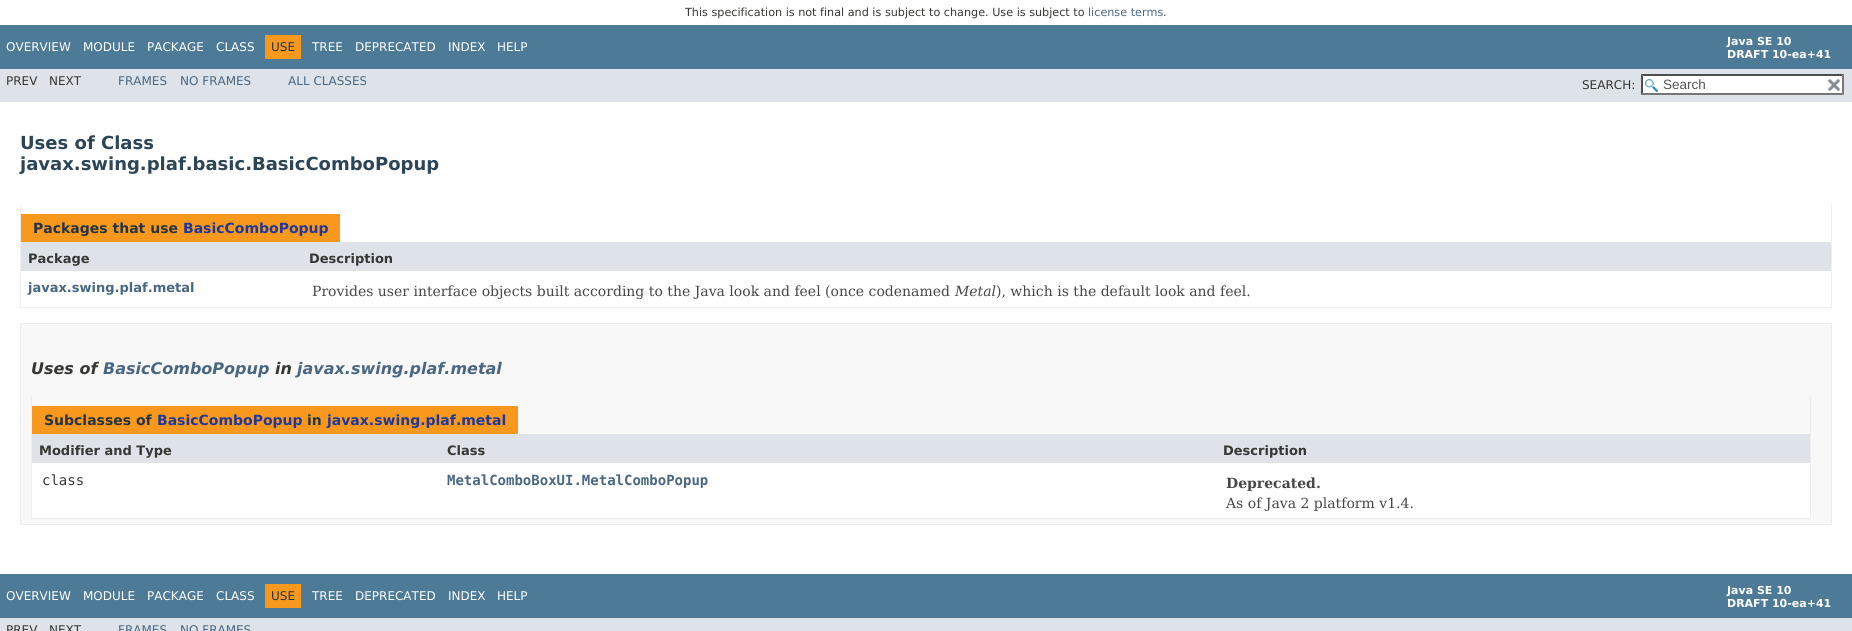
import math
import cairo


def use_color(cr, r, g, b):
  cr.set_source_rgb(r / 255, g / 255, b / 255)

def text(cr, x, y, s, family, size, color, bold=False, italic=False):
  cr.select_font_face(family, cairo.FONT_SLANT_ITALIC if italic else cairo.FONT_SLANT_NORMAL, cairo.FONT_WEIGHT_BOLD if bold else cairo.FONT_WEIGHT_NORMAL)
  cr.set_font_size(size)
  use_color(cr, *color)
  cr.move_to(x, y)
  cr.show_text(s)

def box(cr, x, y, w, h, *color):
  use_color(cr, *color)
  cr.rectangle(x, y, w, h)
  cr.fill()

def picture(cr, path, x, y, w, h):
  cr.save()
  cr.set_source_surface(cairo.ImageSurface.create_from_png(path), x, y)
  cr.rectangle(x, y, w, h)
  cr.fill()
  cr.restore()

def draw(cr):
  use_color(cr, 255, 255, 255)
  cr.paint()
  box(cr, 0, 25, 1852, 44, 77, 122, 151)
  box(cr, 265, 35, 36, 24, 248, 152, 29)
  box(cr, 0, 69, 1852, 33, 222, 227, 233)
  box(cr, 1641, 74, 203, 21, 255, 255, 255)
  picture(cr, "img_01.png", 1645, 79, 13, 13)
  use_color(cr, 79, 79, 79)
  cr.new_path()
  cr.move_to(1641, 74)
  cr.line_to(1844, 74)
  cr.line_to(1842, 76)
  cr.line_to(1643, 76)
  cr.close_path()
  cr.fill()
  use_color(cr, 118, 118, 118)
  cr.new_path()
  cr.move_to(1844, 74)
  cr.line_to(1844, 95)
  cr.line_to(1842, 93)
  cr.line_to(1842, 76)
  cr.close_path()
  cr.fill()
  cr.new_path()
  cr.move_to(1844, 95)
  cr.line_to(1641, 95)
  cr.line_to(1643, 93)
  cr.line_to(1842, 93)
  cr.close_path()
  cr.fill()
  use_color(cr, 79, 79, 79)
  cr.new_path()
  cr.move_to(1641, 95)
  cr.line_to(1641, 74)
  cr.line_to(1643, 76)
  cr.line_to(1643, 93)
  cr.close_path()
  cr.fill()
  picture(cr, "img_02.png", 1827, 79, 14, 12)
  box(cr, 1831, 204, 1, 104, 238, 238, 238)
  box(cr, 20, 307, 1812, 1, 238, 238, 238)
  box(cr, 20, 204, 1, 104, 238, 238, 238)
  box(cr, 21, 214, 319, 28, 248, 152, 29)
  box(cr, 21, 242, 1810, 29, 222, 227, 233)
  use_color(cr, 248, 248, 248)
  cr.rectangle(20.5, 323.5, 1811, 201)
  cr.fill_preserve()
  use_color(cr, 237, 237, 237)
  cr.set_line_width(1)
  cr.stroke()
  box(cr, 1810, 396, 1, 123, 238, 238, 238)
  box(cr, 31, 518, 1780, 1, 238, 238, 238)
  box(cr, 31, 396, 1, 123, 238, 238, 238)
  box(cr, 32, 406, 486, 28, 248, 152, 29)
  box(cr, 32, 434, 1778, 29, 222, 227, 233)
  box(cr, 32, 463, 1778, 55, 255, 255, 255)
  box(cr, 0, 574, 1852, 44, 77, 122, 151)
  box(cr, 265, 584, 36, 24, 248, 152, 29)
  box(cr, 0, 618, 1852, 13, 222, 227, 233)
  text(cr, 685, 16, "This specification is not final and is subject to change. Use is subject to", "DejaVu Sans", 11.2, (53, 56, 51))
  text(cr, 1088, 16, "license terms", "DejaVu Sans", 11.2, (74, 103, 130))
  text(cr, 1163, 16, ".", "DejaVu Sans", 11.2, (53, 56, 51))
  text(cr, 6, 51, "OVERVIEW", "DejaVu Sans", 12, (255, 255, 255))
  text(cr, 83, 51, "MODULE", "DejaVu Sans", 12, (255, 255, 255))
  text(cr, 147, 51, "PACKAGE", "DejaVu Sans", 12, (255, 255, 255))
  text(cr, 216, 51, "CLASS", "DejaVu Sans", 12, (255, 255, 255))
  text(cr, 271, 51, "USE", "DejaVu Sans", 12, (37, 52, 65))
  text(cr, 312, 51, "TREE", "DejaVu Sans", 12, (255, 255, 255))
  text(cr, 355, 51, "DEPRECATED", "DejaVu Sans", 12, (255, 255, 255))
  text(cr, 448, 51, "INDEX", "DejaVu Sans", 12, (255, 255, 255))
  text(cr, 497, 51, "HELP", "DejaVu Sans", 12, (255, 255, 255))
  text(cr, 1727, 45, "Java SE 10", "DejaVu Sans", 11, (255, 255, 255), bold=True)
  text(cr, 1727, 58, "DRAFT 10-ea+41", "DejaVu Sans", 11, (255, 255, 255), bold=True)
  text(cr, 6, 85, "PREV", "DejaVu Sans", 12, (53, 56, 51))
  text(cr, 49, 85, "NEXT", "DejaVu Sans", 12, (53, 56, 51))
  text(cr, 118, 85, "FRAMES", "DejaVu Sans", 12, (74, 103, 130))
  text(cr, 180, 85, "NO FRAMES", "DejaVu Sans", 12, (74, 103, 130))
  text(cr, 288, 85, "ALL CLASSES", "DejaVu Sans", 12, (74, 103, 130))
  text(cr, 1582, 89, "SEARCH:", "DejaVu Sans", 12, (53, 56, 51))
  text(cr, 1663, 89, "Search", "Liberation Sans", 13.5, (84, 84, 84))
  text(cr, 20, 149, "Uses of Class", "DejaVu Sans", 18, (44, 69, 87), bold=True)
  text(cr, 20, 170, "javax.swing.plaf.basic.BasicComboPopup", "DejaVu Sans", 18, (44, 69, 87), bold=True)
  text(cr, 33, 233, "Packages that use", "DejaVu Sans", 14, (37, 52, 65), bold=True)
  text(cr, 183, 233, "BasicComboPopup", "DejaVu Sans", 14, (31, 56, 156), bold=True)
  text(cr, 28, 263, "Package", "DejaVu Sans", 13, (53, 56, 51), bold=True)
  text(cr, 309, 263, "Description", "DejaVu Sans", 13, (53, 56, 51), bold=True)
  text(cr, 28, 292, "javax.swing.plaf.metal", "DejaVu Sans", 13, (74, 103, 130), bold=True)
  text(cr, 312, 296, "Provides user interface objects built according to the Java look and feel (once codenamed", "DejaVu Serif", 14, (71, 71, 71))
  text(cr, 955, 296, "Metal", "DejaVu Serif", 14, (71, 71, 71), italic=True)
  text(cr, 996, 296, "), which is the default look and feel.", "DejaVu Serif", 14, (71, 71, 71))
  text(cr, 31, 374, "Uses of", "DejaVu Sans", 16, (53, 56, 51), bold=True, italic=True)
  text(cr, 103, 374, "BasicComboPopup", "DejaVu Sans", 16, (74, 103, 130), bold=True, italic=True)
  text(cr, 275, 374, "in", "DejaVu Sans", 16, (53, 56, 51), bold=True, italic=True)
  text(cr, 297, 374, "javax.swing.plaf.metal", "DejaVu Sans", 16, (74, 103, 130), bold=True, italic=True)
  text(cr, 44, 425, "Subclasses of", "DejaVu Sans", 14, (37, 52, 65), bold=True)
  text(cr, 157, 425, "BasicComboPopup", "DejaVu Sans", 14, (31, 56, 156), bold=True)
  text(cr, 307, 425, "in", "DejaVu Sans", 14, (37, 52, 65), bold=True)
  text(cr, 327, 425, "javax.swing.plaf.metal", "DejaVu Sans", 14, (31, 56, 156), bold=True)
  text(cr, 39, 455, "Modifier and Type", "DejaVu Sans", 13, (53, 56, 51), bold=True)
  text(cr, 447, 455, "Class", "DejaVu Sans", 13, (53, 56, 51), bold=True)
  text(cr, 1223, 455, "Description", "DejaVu Sans", 13, (53, 56, 51), bold=True)
  text(cr, 42, 485, "class", "DejaVu Sans Mono", 14, (53, 56, 51))
  text(cr, 447, 485, "MetalComboBoxUI.MetalComboPopup", "DejaVu Sans Mono", 14, (74, 103, 130), bold=True)
  text(cr, 1226, 488, "Deprecated.", "DejaVu Serif", 14, (71, 71, 71), bold=True)
  text(cr, 1226, 508, "As of Java 2 platform v1.4.", "DejaVu Serif", 14, (71, 71, 71))
  text(cr, 6, 600, "OVERVIEW", "DejaVu Sans", 12, (255, 255, 255))
  text(cr, 83, 600, "MODULE", "DejaVu Sans", 12, (255, 255, 255))
  text(cr, 147, 600, "PACKAGE", "DejaVu Sans", 12, (255, 255, 255))
  text(cr, 216, 600, "CLASS", "DejaVu Sans", 12, (255, 255, 255))
  text(cr, 271, 600, "USE", "DejaVu Sans", 12, (37, 52, 65))
  text(cr, 312, 600, "TREE", "DejaVu Sans", 12, (255, 255, 255))
  text(cr, 355, 600, "DEPRECATED", "DejaVu Sans", 12, (255, 255, 255))
  text(cr, 448, 600, "INDEX", "DejaVu Sans", 12, (255, 255, 255))
  text(cr, 497, 600, "HELP", "DejaVu Sans", 12, (255, 255, 255))
  text(cr, 1727, 594, "Java SE 10", "DejaVu Sans", 11, (255, 255, 255), bold=True)
  text(cr, 1727, 607, "DRAFT 10-ea+41", "DejaVu Sans", 11, (255, 255, 255), bold=True)
  text(cr, 6, 634, "PREV", "DejaVu Sans", 12, (53, 56, 51))
  text(cr, 49, 634, "NEXT", "DejaVu Sans", 12, (53, 56, 51))
  text(cr, 118, 634, "FRAMES", "DejaVu Sans", 12, (74, 103, 130))
  text(cr, 180, 634, "NO FRAMES", "DejaVu Sans", 12, (74, 103, 130))


surface = cairo.ImageSurface(cairo.FORMAT_RGB24, 1852, 631)
cr = cairo.Context(surface)
options = cairo.FontOptions()
options.set_hint_metrics(cairo.HINT_METRICS_OFF)
options.set_hint_style(cairo.HINT_STYLE_NONE)
cr.set_font_options(options)
cr.set_miter_limit(4)
draw(cr)
surface.write_to_png("out.png")
